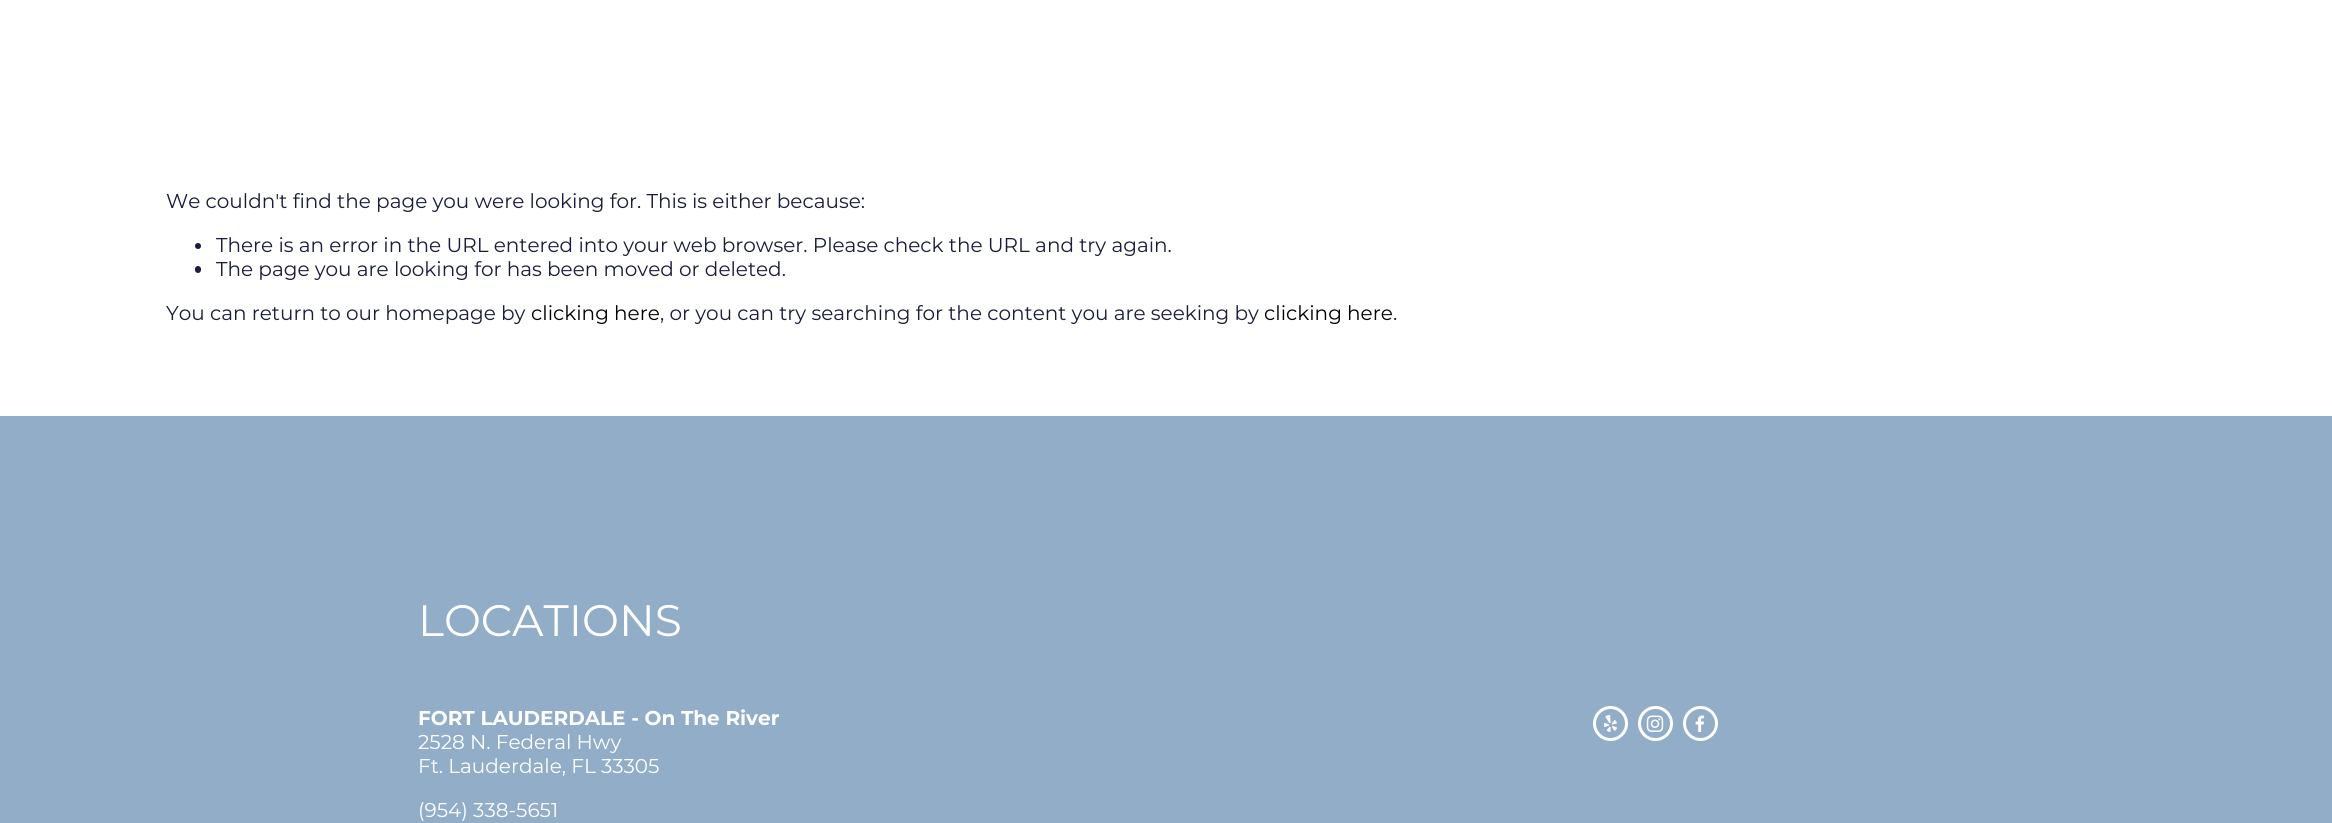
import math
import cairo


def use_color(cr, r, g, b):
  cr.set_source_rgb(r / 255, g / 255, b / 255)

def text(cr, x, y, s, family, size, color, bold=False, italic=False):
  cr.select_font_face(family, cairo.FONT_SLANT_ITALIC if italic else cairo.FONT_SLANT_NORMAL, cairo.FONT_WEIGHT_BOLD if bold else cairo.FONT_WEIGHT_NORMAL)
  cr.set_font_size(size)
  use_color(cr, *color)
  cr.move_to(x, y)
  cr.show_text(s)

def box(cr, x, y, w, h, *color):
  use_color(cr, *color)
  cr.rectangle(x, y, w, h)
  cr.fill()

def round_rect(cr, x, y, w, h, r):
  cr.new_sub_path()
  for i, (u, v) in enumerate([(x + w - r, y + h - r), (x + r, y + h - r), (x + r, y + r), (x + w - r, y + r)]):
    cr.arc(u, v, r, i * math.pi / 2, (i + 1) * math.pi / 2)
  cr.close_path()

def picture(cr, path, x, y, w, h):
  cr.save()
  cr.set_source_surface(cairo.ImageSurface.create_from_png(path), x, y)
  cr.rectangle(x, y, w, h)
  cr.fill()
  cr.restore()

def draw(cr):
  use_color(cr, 255, 255, 255)
  cr.paint()
  use_color(cr, 23, 29, 58)
  cr.arc(198, 246, 3, 0, 2 * math.pi)
  cr.fill()
  round_rect(cr, 195, 266, 6, 7, 3)
  cr.fill()
  box(cr, 0, 416, 2332, 407, 145, 173, 200)
  cr.arc(1610.5, 723.5, 16, 0, 2 * math.pi)
  use_color(cr, 255, 255, 255)
  cr.set_line_width(3)
  cr.stroke()
  picture(cr, "img_01.png", 1604, 715, 13, 17)
  cr.arc(1655.5, 723.5, 16, 0, 2 * math.pi)
  cr.stroke()
  picture(cr, "img_02.png", 1646, 715, 18, 17)
  cr.arc(1700.5, 723.5, 16, 0, 2 * math.pi)
  cr.stroke()
  picture(cr, "img_03.png", 1695, 715, 10, 17)
  text(cr, 166, 208, "We couldn't find the page you were looking for. This is either because:", "Montserrat", 20, (23, 29, 58))
  text(cr, 216, 252, "There is an error in the URL entered into your web browser. Please check the URL and try again.", "Montserrat", 20, (23, 29, 58))
  text(cr, 216, 276, "The page you are looking for has been moved or deleted.", "Montserrat", 20, (23, 29, 58))
  text(cr, 166, 320, "You can return to our homepage by", "Montserrat", 20, (23, 29, 58))
  text(cr, 531, 320, "clicking here", "Montserrat", 20, (0, 0, 0))
  text(cr, 660, 320, ", or you can try searching for the content you are seeking by", "Montserrat", 20, (23, 29, 58))
  text(cr, 1264, 320, "clicking here", "Montserrat", 20, (0, 0, 0))
  text(cr, 1393, 320, ".", "Montserrat", 20, (23, 29, 58))
  text(cr, 418, 636, "LOCATIONS", "Montserrat", 44, (255, 255, 255))
  text(cr, 418, 725, "FORT LAUDERDALE - On The River", "Montserrat", 20, (255, 255, 255), bold=True)
  text(cr, 418, 749, "2528 N. Federal Hwy", "Montserrat", 20, (255, 255, 255))
  text(cr, 418, 773, "Ft. Lauderdale, FL 33305", "Montserrat", 20, (255, 255, 255))
  text(cr, 418, 817, "(954) 338-5651", "Montserrat", 20, (255, 255, 255))


surface = cairo.ImageSurface(cairo.FORMAT_RGB24, 2332, 823)
cr = cairo.Context(surface)
options = cairo.FontOptions()
options.set_hint_metrics(cairo.HINT_METRICS_OFF)
options.set_hint_style(cairo.HINT_STYLE_NONE)
cr.set_font_options(options)
cr.set_miter_limit(4)
draw(cr)
surface.write_to_png("out.png")
